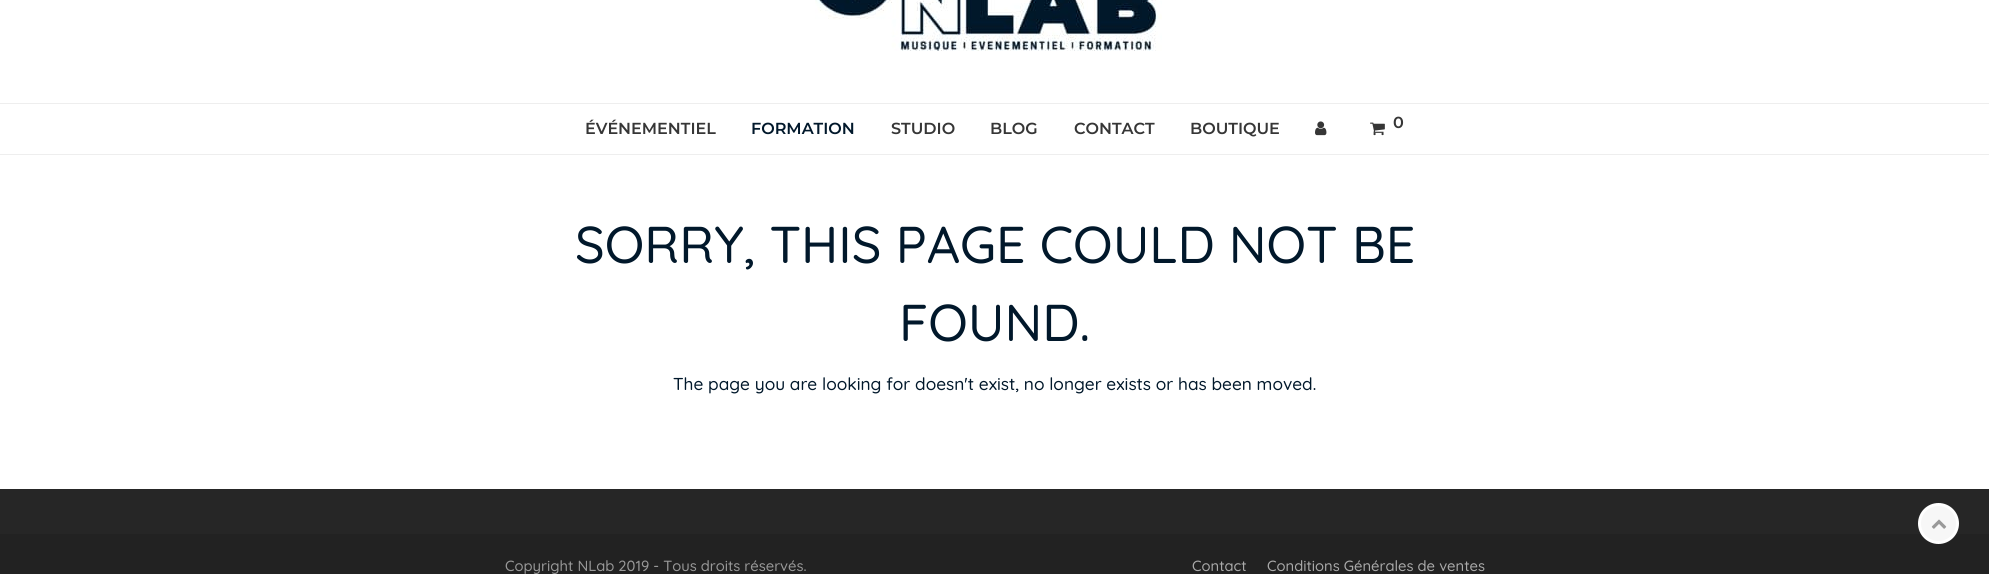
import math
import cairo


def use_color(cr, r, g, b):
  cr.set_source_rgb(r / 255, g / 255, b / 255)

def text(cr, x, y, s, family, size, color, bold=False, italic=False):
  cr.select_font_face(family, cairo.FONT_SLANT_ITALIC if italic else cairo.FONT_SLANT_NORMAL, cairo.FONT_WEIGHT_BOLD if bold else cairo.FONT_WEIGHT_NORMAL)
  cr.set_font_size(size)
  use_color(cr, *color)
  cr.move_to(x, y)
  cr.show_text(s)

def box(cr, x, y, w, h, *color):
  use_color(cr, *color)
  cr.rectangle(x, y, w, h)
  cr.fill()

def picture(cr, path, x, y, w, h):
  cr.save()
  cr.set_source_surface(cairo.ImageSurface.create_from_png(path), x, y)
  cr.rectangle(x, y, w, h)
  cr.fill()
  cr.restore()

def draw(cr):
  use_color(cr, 255, 255, 255)
  cr.paint()
  picture(cr, "img_01.png", 815, 0, 347, 51)
  box(cr, 0, 103, 1989, 1, 238, 238, 238)
  box(cr, 0, 154, 1989, 1, 238, 238, 238)
  picture(cr, "img_02.png", 1315, 121, 12, 15)
  picture(cr, "img_03.png", 1370, 122, 15, 14)
  box(cr, 0, 489, 1989, 45, 38, 38, 38)
  box(cr, 0, 534, 1989, 40, 34, 34, 34)
  use_color(cr, 247, 247, 247)
  cr.arc(1938.5, 523.5, 19, 0, 2 * math.pi)
  cr.fill_preserve()
  use_color(cr, 255, 255, 255)
  cr.set_line_width(3)
  cr.stroke()
  picture(cr, "img_04.png", 1931, 519, 16, 10)
  text(cr, 585, 134, "ÉVÉNEMENTIEL", "Montserrat SemiBold", 16, (54, 54, 54))
  text(cr, 751, 134, "FORMATION", "Montserrat SemiBold", 16, (1, 24, 43))
  text(cr, 891, 134, "STUDIO", "Montserrat SemiBold", 16, (54, 54, 54))
  text(cr, 990, 134, "BLOG", "Montserrat SemiBold", 16, (54, 54, 54))
  text(cr, 1074, 134, "CONTACT", "Montserrat SemiBold", 16, (54, 54, 54))
  text(cr, 1190, 134, "BOUTIQUE", "Montserrat SemiBold", 16, (54, 54, 54))
  text(cr, 1393, 128, "0", "Montserrat SemiBold", 16, (54, 54, 54))
  text(cr, 575, 263, "SORRY, THIS PAGE COULD NOT BE", "Quicksand Medium", 51.75, (1, 24, 43))
  text(cr, 899, 341, "FOUND.", "Quicksand Medium", 51.75, (1, 24, 43))
  text(cr, 673, 390, "The page you are looking for doesn't exist, no longer exists or has been moved.", "Quicksand Medium", 17.25, (1, 24, 43))
  text(cr, 505, 571, "Copyright NLab 2019 - Tous droits réservés.", "Quicksand Medium", 14.75, (153, 153, 153))
  text(cr, 1192, 571, "Contact", "Quicksand Medium", 14.75, (170, 170, 170))
  text(cr, 1267, 571, "Conditions Générales de ventes", "Quicksand Medium", 14.75, (170, 170, 170))


surface = cairo.ImageSurface(cairo.FORMAT_RGB24, 1989, 574)
cr = cairo.Context(surface)
options = cairo.FontOptions()
options.set_hint_metrics(cairo.HINT_METRICS_OFF)
options.set_hint_style(cairo.HINT_STYLE_NONE)
cr.set_font_options(options)
cr.set_miter_limit(4)
draw(cr)
surface.write_to_png("out.png")
